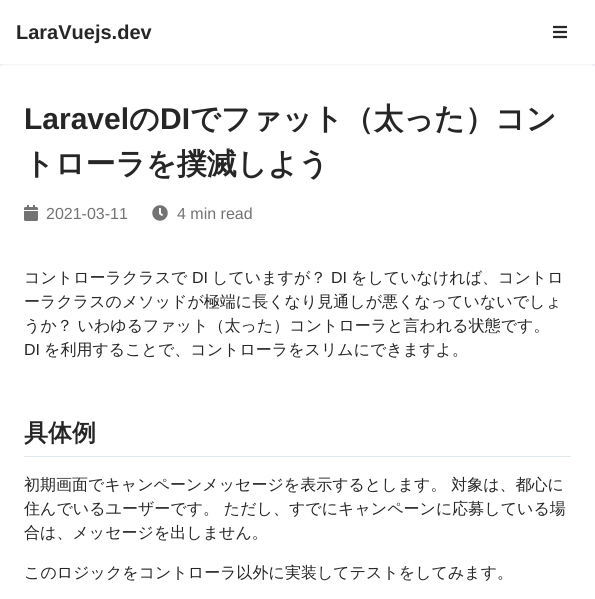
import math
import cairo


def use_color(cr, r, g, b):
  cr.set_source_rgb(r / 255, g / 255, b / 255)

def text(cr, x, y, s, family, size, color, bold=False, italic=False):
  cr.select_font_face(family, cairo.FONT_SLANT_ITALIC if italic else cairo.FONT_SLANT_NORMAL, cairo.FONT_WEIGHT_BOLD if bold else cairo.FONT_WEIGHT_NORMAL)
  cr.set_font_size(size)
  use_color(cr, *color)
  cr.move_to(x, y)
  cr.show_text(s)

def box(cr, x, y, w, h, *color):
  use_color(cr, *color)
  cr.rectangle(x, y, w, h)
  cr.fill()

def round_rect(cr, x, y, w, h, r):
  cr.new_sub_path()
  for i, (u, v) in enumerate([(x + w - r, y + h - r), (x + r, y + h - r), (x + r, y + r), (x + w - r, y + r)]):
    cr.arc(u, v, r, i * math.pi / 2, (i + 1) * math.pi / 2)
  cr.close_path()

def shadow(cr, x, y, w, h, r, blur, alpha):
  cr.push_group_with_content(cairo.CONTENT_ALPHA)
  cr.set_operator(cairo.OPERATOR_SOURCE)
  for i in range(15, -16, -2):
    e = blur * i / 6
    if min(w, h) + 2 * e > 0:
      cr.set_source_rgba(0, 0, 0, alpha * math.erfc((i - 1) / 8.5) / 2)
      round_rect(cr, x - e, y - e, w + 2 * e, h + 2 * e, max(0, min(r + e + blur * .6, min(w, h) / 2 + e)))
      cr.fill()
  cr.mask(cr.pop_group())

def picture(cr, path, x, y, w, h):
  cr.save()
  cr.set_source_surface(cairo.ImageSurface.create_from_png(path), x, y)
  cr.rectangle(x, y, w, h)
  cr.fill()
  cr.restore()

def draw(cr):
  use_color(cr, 242, 242, 247)
  cr.paint()
  use_color(cr, 255, 255, 255)
  round_rect(cr, 0, 64, 595, 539, 4)
  cr.fill()
  use_color(cr, 0, 0, 0)
  shadow(cr, 0, 1, 595, 64, 0, 1, 0.05)
  box(cr, 0, 0, 595, 64, 255, 255, 255)
  picture(cr, "img_01.png", 553, 25, 14, 14)
  picture(cr, "img_02.png", 24, 205, 14, 16)
  picture(cr, "img_03.png", 152, 205, 16, 16)
  box(cr, 24, 456, 547, 1, 226, 232, 240)
  text(cr, 16, 39, "LaraVuejs.dev", "Liberation Sans", 20, (38, 38, 38), bold=True)
  text(cr, 24, 129, "Laravel", "Liberation Sans", 30, (38, 38, 38), bold=True)
  text(cr, 129, 129, "の", "WenQuanYi Zen Hei", 30, (38, 38, 38), bold=True)
  text(cr, 160, 129, "DI", "Liberation Sans", 30, (38, 38, 38), bold=True)
  text(cr, 190, 129, "でファット（太った）コン", "WenQuanYi Zen Hei", 30, (38, 38, 38), bold=True)
  text(cr, 24, 174, "トローラを撲滅しよう", "WenQuanYi Zen Hei", 30, (38, 38, 38), bold=True)
  text(cr, 46, 219, "2021-03-11", "Liberation Sans", 16, (115, 115, 115))
  text(cr, 177, 219, "4 min read", "Liberation Sans", 16, (115, 115, 115))
  text(cr, 24, 283, "コントローラクラスで", "WenQuanYi Zen Hei Medium", 16, (38, 38, 38))
  text(cr, 192, 283, "DI", "Liberation Sans", 16, (38, 38, 38))
  text(cr, 212, 283, "していますが？", "WenQuanYi Zen Hei Medium", 16, (38, 38, 38))
  text(cr, 331, 283, "DI", "Liberation Sans", 16, (38, 38, 38))
  text(cr, 351, 283, "をしていなければ、コントロ", "WenQuanYi Zen Hei Medium", 16, (38, 38, 38))
  text(cr, 24, 307, "ーラクラスのメソッドが極端に長くなり見通しが悪くなっていないでしょ", "WenQuanYi Zen Hei Medium", 16, (38, 38, 38))
  text(cr, 24, 331, "うか？ いわゆるファット（太った）コントローラと言われる状態です。", "WenQuanYi Zen Hei Medium", 16, (38, 38, 38))
  text(cr, 24, 355, "DI", "Liberation Sans", 16, (38, 38, 38))
  text(cr, 44, 355, "を利用することで、コントローラをスリムにできますよ。", "WenQuanYi Zen Hei Medium", 16, (38, 38, 38))
  text(cr, 24, 441, "具体例", "WenQuanYi Zen Hei", 24, (38, 38, 38), bold=True)
  text(cr, 24, 490, "初期画面でキャンペーンメッセージを表示するとします。 対象は、都心に", "WenQuanYi Zen Hei Medium", 16, (38, 38, 38))
  text(cr, 24, 514, "住んでいるユーザーです。 ただし、すでにキャンペーンに応募している場", "WenQuanYi Zen Hei Medium", 16, (38, 38, 38))
  text(cr, 24, 538, "合は、メッセージを出しません。", "WenQuanYi Zen Hei Medium", 16, (38, 38, 38))
  text(cr, 24, 578, "このロジックをコントローラ以外に実装してテストをしてみます。", "WenQuanYi Zen Hei Medium", 16, (38, 38, 38))


surface = cairo.ImageSurface(cairo.FORMAT_RGB24, 595, 599)
cr = cairo.Context(surface)
options = cairo.FontOptions()
options.set_hint_metrics(cairo.HINT_METRICS_OFF)
options.set_hint_style(cairo.HINT_STYLE_NONE)
cr.set_font_options(options)
cr.set_miter_limit(4)
draw(cr)
surface.write_to_png("out.png")
